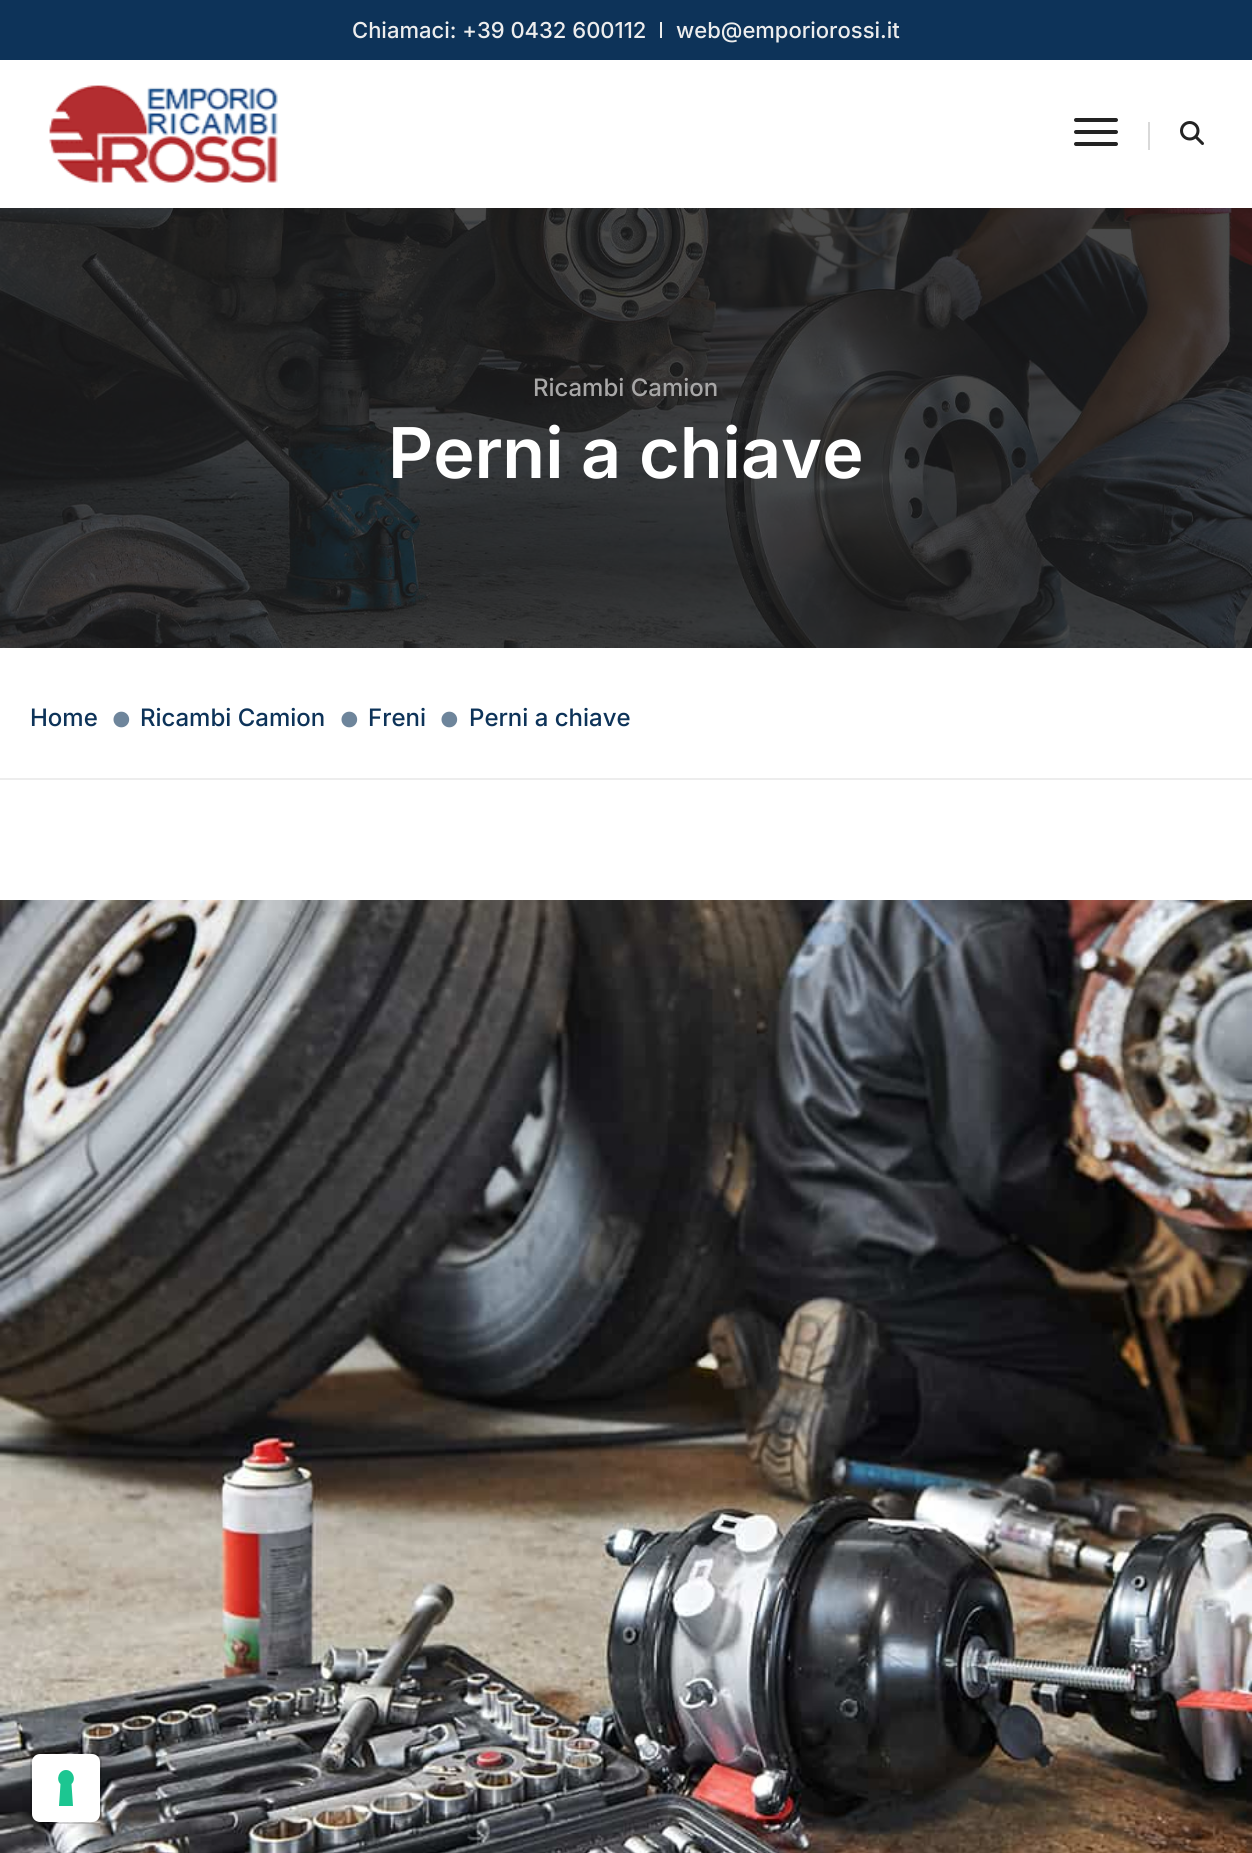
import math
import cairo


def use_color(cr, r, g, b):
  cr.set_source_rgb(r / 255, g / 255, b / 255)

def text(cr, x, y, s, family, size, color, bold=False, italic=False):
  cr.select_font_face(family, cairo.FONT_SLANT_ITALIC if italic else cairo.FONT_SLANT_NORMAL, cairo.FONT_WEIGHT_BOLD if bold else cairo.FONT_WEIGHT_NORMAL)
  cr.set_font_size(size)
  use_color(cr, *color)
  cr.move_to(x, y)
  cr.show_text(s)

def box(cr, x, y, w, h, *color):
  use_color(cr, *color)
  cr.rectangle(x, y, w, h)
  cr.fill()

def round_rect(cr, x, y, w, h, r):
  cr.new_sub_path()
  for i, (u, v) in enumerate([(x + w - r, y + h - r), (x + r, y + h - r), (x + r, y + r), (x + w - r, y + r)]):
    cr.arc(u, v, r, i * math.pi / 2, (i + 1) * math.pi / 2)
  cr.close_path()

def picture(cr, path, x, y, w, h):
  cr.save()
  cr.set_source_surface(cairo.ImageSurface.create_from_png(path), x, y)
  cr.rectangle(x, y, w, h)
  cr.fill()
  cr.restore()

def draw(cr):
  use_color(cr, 255, 255, 255)
  cr.paint()
  box(cr, 0, 0, 1252, 60, 13, 51, 89)
  box(cr, 660, 22, 2, 16, 237, 237, 237)
  picture(cr, "img_01.png", 49, 85, 229, 98)
  use_color(cr, 35, 35, 35)
  round_rect(cr, 1074, 118, 44, 4, 2)
  cr.fill()
  round_rect(cr, 1074, 130, 44, 4, 2)
  cr.fill()
  round_rect(cr, 1074, 142, 44, 4, 2)
  cr.fill()
  box(cr, 1148, 122, 2, 28, 217, 217, 217)
  picture(cr, "img_02.png", 1180, 121, 24, 24)
  picture(cr, "img_03.png", 0, 208, 1252, 440)
  box(cr, 0, 778, 1252, 2, 237, 237, 237)
  picture(cr, "img_04.png", 0, 900, 1252, 953)
  round_rect(cr, 31, 1753, 70, 70, 9)
  cr.set_source_rgba(0, 0, 0, 0.15)
  cr.stroke()
  use_color(cr, 255, 255, 255)
  round_rect(cr, 32, 1754, 68, 68, 8)
  cr.fill()
  use_color(cr, 28, 198, 145)
  cr.set_fill_rule(cairo.FILL_RULE_EVEN_ODD)
  cr.new_path()
  cr.move_to(66, 1770)
  cr.curve_to(73, 1770, 76.5, 1779.5, 71.5, 1784)
  cr.line_to(73, 1806)
  cr.line_to(59, 1806)
  cr.line_to(60.5, 1784)
  cr.curve_to(55.5, 1779.5, 59, 1770, 66, 1770)
  cr.close_path()
  cr.fill()
  text(cr, 352, 38, "Chiamaci: +39 0432 600112", "Inter Medium", 22, (237, 237, 237))
  text(cr, 676, 38, "web@emporiorossi.it", "Inter Medium", 22, (237, 237, 237))
  text(cr, 533, 396, "Ricambi Camion", "Inter Medium", 24, (168, 167, 167))
  text(cr, 388, 478, "Perni a chiave", "Inter SemiBold", 70, (255, 255, 255))
  text(cr, 30, 726, "Home", "Inter Medium", 24, (13, 51, 89))
  text(cr, 108, 734, "•", "Inter Medium", 50, (110, 133, 155))
  text(cr, 140, 726, "Ricambi Camion", "Inter Medium", 24, (13, 51, 89))
  text(cr, 336, 734, "•", "Inter Medium", 50, (110, 133, 155))
  text(cr, 368, 726, "Freni", "Inter Medium", 24, (13, 51, 89))
  text(cr, 436, 734, "•", "Inter Medium", 50, (110, 133, 155))
  text(cr, 469, 726, "Perni a chiave", "Inter Medium", 24, (13, 51, 89))


surface = cairo.ImageSurface(cairo.FORMAT_RGB24, 1252, 1853)
cr = cairo.Context(surface)
options = cairo.FontOptions()
options.set_hint_metrics(cairo.HINT_METRICS_OFF)
options.set_hint_style(cairo.HINT_STYLE_NONE)
cr.set_font_options(options)
cr.set_miter_limit(4)
draw(cr)
surface.write_to_png("out.png")
